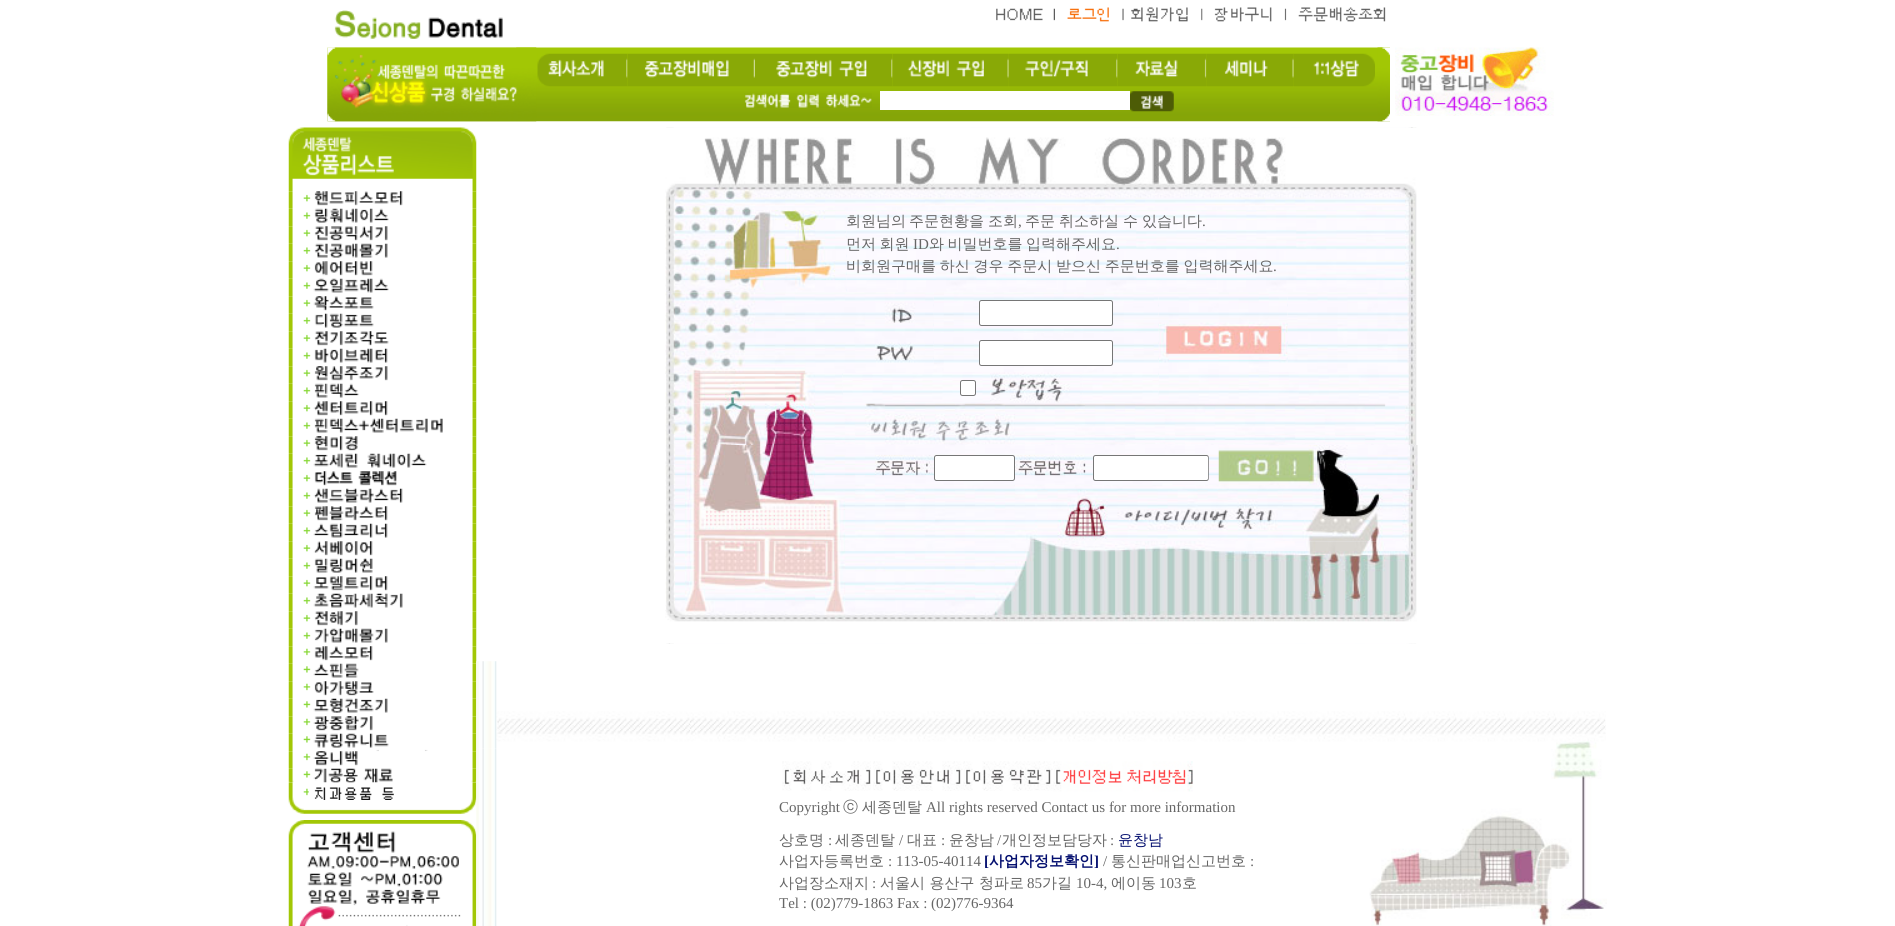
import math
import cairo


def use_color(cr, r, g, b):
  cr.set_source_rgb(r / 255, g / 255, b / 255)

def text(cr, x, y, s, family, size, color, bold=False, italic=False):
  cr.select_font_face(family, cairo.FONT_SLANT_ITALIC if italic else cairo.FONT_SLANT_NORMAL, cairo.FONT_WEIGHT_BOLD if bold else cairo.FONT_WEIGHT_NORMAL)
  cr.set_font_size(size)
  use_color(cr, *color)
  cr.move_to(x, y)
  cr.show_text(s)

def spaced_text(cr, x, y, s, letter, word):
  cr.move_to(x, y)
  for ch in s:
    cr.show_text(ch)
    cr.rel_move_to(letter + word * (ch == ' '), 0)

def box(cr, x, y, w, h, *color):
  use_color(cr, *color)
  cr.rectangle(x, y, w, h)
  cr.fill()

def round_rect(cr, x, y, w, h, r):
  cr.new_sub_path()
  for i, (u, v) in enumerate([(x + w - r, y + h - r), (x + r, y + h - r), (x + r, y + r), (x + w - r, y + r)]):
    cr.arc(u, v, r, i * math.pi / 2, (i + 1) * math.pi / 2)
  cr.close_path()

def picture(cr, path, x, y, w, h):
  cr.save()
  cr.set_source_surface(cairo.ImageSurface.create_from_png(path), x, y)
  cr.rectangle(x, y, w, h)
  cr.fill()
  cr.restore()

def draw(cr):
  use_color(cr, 255, 255, 255)
  cr.paint()
  picture(cr, "img_07.png", 327, 47, 1063, 75)
  picture(cr, "img_01.png", 327, 10, 190, 38)
  picture(cr, "img_02.png", 996, 8, 59, 13)
  picture(cr, "img_03.png", 1067, 7, 57, 15)
  picture(cr, "img_04.png", 1123, 7, 80, 15)
  picture(cr, "img_05.png", 1202, 7, 85, 15)
  picture(cr, "img_06.png", 1286, 7, 100, 15)
  picture(cr, "img_08.png", 327, 47, 210, 75)
  picture(cr, "img_09.png", 537, 53, 91, 34)
  picture(cr, "img_10.png", 627, 53, 128, 34)
  picture(cr, "img_11.png", 755, 53, 138, 34)
  picture(cr, "img_12.png", 892, 53, 117, 34)
  picture(cr, "img_13.png", 1008, 53, 110, 34)
  picture(cr, "img_14.png", 1117, 53, 90, 34)
  picture(cr, "img_15.png", 1206, 53, 88, 34)
  picture(cr, "img_16.png", 1293, 53, 82, 34)
  picture(cr, "img_17.png", 1377, 47, 13, 75)
  picture(cr, "img_18.png", 744, 93, 128, 15)
  box(cr, 880, 91, 250, 19, 255, 255, 255)
  picture(cr, "img_19.png", 1130, 91, 44, 21)
  picture(cr, "img_20.png", 1395, 47, 159, 69)
  picture(cr, "img_21.png", 288, 127, 189, 65)
  picture(cr, "img_22.png", 288, 191, 189, 18)
  picture(cr, "img_23.png", 288, 208, 189, 19)
  picture(cr, "img_24.png", 288, 226, 189, 18)
  picture(cr, "img_25.png", 288, 243, 189, 19)
  picture(cr, "img_26.png", 288, 261, 189, 18)
  picture(cr, "img_27.png", 288, 278, 189, 19)
  picture(cr, "img_28.png", 288, 296, 189, 18)
  picture(cr, "img_29.png", 288, 313, 189, 19)
  picture(cr, "img_30.png", 288, 331, 189, 18)
  picture(cr, "img_31.png", 288, 348, 189, 19)
  picture(cr, "img_32.png", 288, 366, 189, 18)
  picture(cr, "img_33.png", 288, 383, 189, 19)
  picture(cr, "img_34.png", 288, 401, 189, 18)
  picture(cr, "img_35.png", 288, 418, 189, 19)
  picture(cr, "img_36.png", 288, 436, 189, 18)
  picture(cr, "img_37.png", 288, 453, 189, 19)
  picture(cr, "img_38.png", 288, 471, 189, 18)
  picture(cr, "img_39.png", 288, 488, 189, 19)
  picture(cr, "img_40.png", 288, 506, 189, 18)
  picture(cr, "img_41.png", 288, 523, 189, 19)
  picture(cr, "img_42.png", 288, 541, 189, 18)
  picture(cr, "img_43.png", 288, 558, 189, 19)
  picture(cr, "img_44.png", 288, 576, 189, 18)
  picture(cr, "img_45.png", 288, 593, 189, 19)
  picture(cr, "img_46.png", 288, 611, 189, 18)
  picture(cr, "img_47.png", 288, 628, 189, 19)
  picture(cr, "img_48.png", 288, 646, 189, 18)
  picture(cr, "img_49.png", 288, 663, 189, 19)
  picture(cr, "img_50.png", 288, 681, 189, 18)
  picture(cr, "img_51.png", 288, 698, 189, 19)
  picture(cr, "img_52.png", 288, 716, 189, 18)
  picture(cr, "img_53.png", 288, 733, 189, 19)
  picture(cr, "img_54.png", 288, 751, 189, 18)
  picture(cr, "img_55.png", 288, 768, 189, 15)
  picture(cr, "img_56.png", 288, 782, 189, 18)
  picture(cr, "img_57.png", 288, 800, 189, 14)
  picture(cr, "img_58.png", 288, 820, 189, 106)
  picture(cr, "img_59.png", 665, 127, 752, 517)
  picture(cr, "img_60.png", 665, 127, 752, 83)
  picture(cr, "img_61.png", 665, 210, 181, 83)
  picture(cr, "img_62.png", 846, 210, 539, 82)
  picture(cr, "img_63.png", 1385, 210, 30, 83)
  picture(cr, "img_65.png", 933, 292, 226, 40)
  picture(cr, "img_68.png", 933, 333, 226, 40)
  picture(cr, "img_69.png", 665, 372, 178, 32)
  picture(cr, "img_70.png", 842, 372, 317, 30)
  picture(cr, "img_64.png", 665, 292, 269, 81)
  round_rect(cr, 979.5, 300.5, 133, 25, 2)
  cr.fill_preserve()
  use_color(cr, 118, 118, 118)
  cr.set_line_width(1)
  cr.stroke()
  picture(cr, "img_66.png", 1159, 292, 129, 81)
  picture(cr, "img_67.png", 1287, 292, 129, 81)
  use_color(cr, 255, 255, 255)
  round_rect(cr, 979.5, 340.5, 133, 25, 2)
  cr.fill_preserve()
  use_color(cr, 118, 118, 118)
  cr.stroke()
  use_color(cr, 255, 255, 255)
  round_rect(cr, 960.5, 380.5, 15, 15, 2)
  cr.fill_preserve()
  use_color(cr, 118, 118, 118)
  cr.stroke()
  picture(cr, "img_71.png", 990, 372, 92, 31)
  picture(cr, "img_73.png", 665, 403, 750, 139)
  picture(cr, "img_72.png", 1159, 372, 257, 32)
  picture(cr, "img_74.png", 669, 403, 742, 42)
  picture(cr, "img_75.png", 665, 445, 269, 45)
  picture(cr, "img_76.png", 934, 455, 81, 35)
  use_color(cr, 255, 255, 255)
  round_rect(cr, 934.5, 455.5, 80, 25, 2)
  cr.fill_preserve()
  use_color(cr, 118, 118, 118)
  cr.stroke()
  picture(cr, "img_78.png", 1092, 455, 117, 35)
  picture(cr, "img_77.png", 1015, 455, 78, 35)
  use_color(cr, 255, 255, 255)
  round_rect(cr, 1093.5, 455.5, 115, 25, 2)
  cr.fill_preserve()
  use_color(cr, 118, 118, 118)
  cr.stroke()
  picture(cr, "img_79.png", 1208, 445, 110, 45)
  picture(cr, "img_80.png", 1317, 445, 101, 45)
  picture(cr, "img_81.png", 666, 490, 372, 52)
  picture(cr, "img_82.png", 1037, 490, 246, 52)
  picture(cr, "img_83.png", 1283, 490, 132, 52)
  picture(cr, "img_84.png", 665, 541, 752, 103)
  picture(cr, "img_85.png", 476, 661, 1130, 88)
  picture(cr, "img_86.png", 476, 748, 21, 178)
  picture(cr, "img_87.png", 782, 761, 89, 30)
  picture(cr, "img_88.png", 873, 761, 90, 30)
  picture(cr, "img_89.png", 963, 761, 90, 30)
  picture(cr, "img_90.png", 1053, 761, 140, 31)
  picture(cr, "img_91.png", 1369, 748, 238, 178)
  text(cr, 846, 226, "회원님의", "WenQuanYi Zen Hei Medium", 15, (102, 102, 102))
  spaced_text(cr, 909, 226, "주문현황을 조회", 0, -0.5)
  text(cr, 1018, 226, ",", "Liberation Serif", 15, (102, 102, 102))
  cr.select_font_face("WenQuanYi Zen Hei Medium")
  spaced_text(cr, 1025, 226, "주문 취소하실 수 있습니다", 0, -0.5)
  text(cr, 1202, 226, ".", "Liberation Serif", 15, (102, 102, 102))
  cr.select_font_face("WenQuanYi Zen Hei Medium")
  spaced_text(cr, 846, 249, "먼저 회원", 0, -1)
  text(cr, 913, 249, "ID", "Liberation Serif", 15, (102, 102, 102))
  cr.select_font_face("WenQuanYi Zen Hei Medium")
  spaced_text(cr, 929, 249, "와 비밀번호를 입력해주세요", 0, -1)
  text(cr, 1116, 249, ".", "Liberation Serif", 15, (102, 102, 102))
  cr.select_font_face("WenQuanYi Zen Hei Medium")
  spaced_text(cr, 846, 271, "비회원구매를 하신 경우 주문시 받으신 주문번호를 입력해주세요", 0, -0.75)
  text(cr, 1273, 271, ".", "Liberation Serif", 15, (102, 102, 102))
  text(cr, 779, 812, "Copyright", "Liberation Serif", 15, (102, 102, 102))
  text(cr, 843, 812, "ⓒ", "WenQuanYi Zen Hei Medium", 15, (102, 102, 102))
  text(cr, 862, 812, "세종덴탈", "WenQuanYi Zen Hei Medium", 15, (102, 102, 102))
  text(cr, 926, 812, "All rights reserved Contact us for more information", "Liberation Serif", 15, (102, 102, 102))
  text(cr, 779, 845, "상호명", "WenQuanYi Zen Hei Medium", 15, (102, 102, 102))
  text(cr, 828, 845, ":", "Liberation Serif", 15, (102, 102, 102))
  text(cr, 835, 845, "세종덴탈", "WenQuanYi Zen Hei Medium", 15, (102, 102, 102))
  text(cr, 899, 845, "/", "Liberation Serif", 15, (102, 102, 102))
  text(cr, 907, 845, "대표", "WenQuanYi Zen Hei Medium", 15, (102, 102, 102))
  text(cr, 941, 845, ":", "Liberation Serif", 15, (102, 102, 102))
  text(cr, 949, 845, "윤창남", "WenQuanYi Zen Hei Medium", 15, (102, 102, 102))
  text(cr, 997, 845, "/", "Liberation Serif", 15, (102, 102, 102))
  text(cr, 1002, 845, "개인정보담당자", "WenQuanYi Zen Hei Medium", 15, (102, 102, 102))
  text(cr, 1110, 845, ":", "Liberation Serif", 15, (102, 102, 102))
  text(cr, 1118, 845, "윤창남", "WenQuanYi Zen Hei Medium", 15, (4, 15, 111))
  text(cr, 779, 866, "사업자등록번호", "WenQuanYi Zen Hei Medium", 15, (102, 102, 102))
  text(cr, 888, 866, ": 113-05-40114", "Liberation Serif", 15, (102, 102, 102))
  text(cr, 984, 866, "[", "Liberation Serif", 15, (4, 15, 111), bold=True)
  text(cr, 989, 866, "사업자정보확인", "WenQuanYi Zen Hei", 15, (4, 15, 111), bold=True)
  text(cr, 1094, 866, "]", "Liberation Serif", 15, (4, 15, 111), bold=True)
  text(cr, 1103, 866, "/", "Liberation Serif", 15, (102, 102, 102))
  text(cr, 1111, 866, "통신판매업신고번호", "WenQuanYi Zen Hei Medium", 15, (102, 102, 102))
  text(cr, 1250, 866, ":", "Liberation Serif", 15, (102, 102, 102))
  text(cr, 779, 888, "사업장소재지", "WenQuanYi Zen Hei Medium", 15, (102, 102, 102))
  text(cr, 872, 888, ":", "Liberation Serif", 15, (102, 102, 102))
  text(cr, 880, 888, "서울시 용산구 청파로", "WenQuanYi Zen Hei Medium", 15, (102, 102, 102))
  text(cr, 1027, 888, "85", "Liberation Serif", 15, (102, 102, 102))
  text(cr, 1042, 888, "가길", "WenQuanYi Zen Hei Medium", 15, (102, 102, 102))
  text(cr, 1076, 888, "10-4,", "Liberation Serif", 15, (102, 102, 102))
  text(cr, 1111, 888, "에이동", "WenQuanYi Zen Hei Medium", 15, (102, 102, 102))
  text(cr, 1159, 888, "103", "Liberation Serif", 15, (102, 102, 102))
  text(cr, 1182, 888, "호", "WenQuanYi Zen Hei Medium", 15, (102, 102, 102))
  text(cr, 779, 908, "Tel : (02)779-1863 Fax : (02)776-9364", "Liberation Serif", 15, (102, 102, 102))


surface = cairo.ImageSurface(cairo.FORMAT_RGB24, 1895, 926)
cr = cairo.Context(surface)
options = cairo.FontOptions()
options.set_hint_metrics(cairo.HINT_METRICS_OFF)
options.set_hint_style(cairo.HINT_STYLE_NONE)
cr.set_font_options(options)
cr.set_miter_limit(4)
draw(cr)
surface.write_to_png("out.png")
